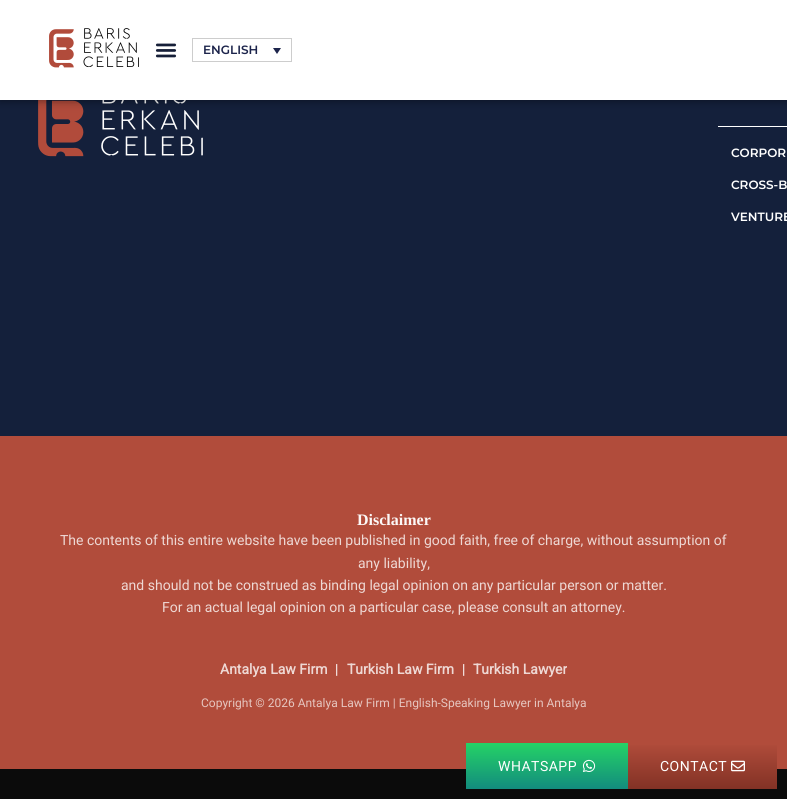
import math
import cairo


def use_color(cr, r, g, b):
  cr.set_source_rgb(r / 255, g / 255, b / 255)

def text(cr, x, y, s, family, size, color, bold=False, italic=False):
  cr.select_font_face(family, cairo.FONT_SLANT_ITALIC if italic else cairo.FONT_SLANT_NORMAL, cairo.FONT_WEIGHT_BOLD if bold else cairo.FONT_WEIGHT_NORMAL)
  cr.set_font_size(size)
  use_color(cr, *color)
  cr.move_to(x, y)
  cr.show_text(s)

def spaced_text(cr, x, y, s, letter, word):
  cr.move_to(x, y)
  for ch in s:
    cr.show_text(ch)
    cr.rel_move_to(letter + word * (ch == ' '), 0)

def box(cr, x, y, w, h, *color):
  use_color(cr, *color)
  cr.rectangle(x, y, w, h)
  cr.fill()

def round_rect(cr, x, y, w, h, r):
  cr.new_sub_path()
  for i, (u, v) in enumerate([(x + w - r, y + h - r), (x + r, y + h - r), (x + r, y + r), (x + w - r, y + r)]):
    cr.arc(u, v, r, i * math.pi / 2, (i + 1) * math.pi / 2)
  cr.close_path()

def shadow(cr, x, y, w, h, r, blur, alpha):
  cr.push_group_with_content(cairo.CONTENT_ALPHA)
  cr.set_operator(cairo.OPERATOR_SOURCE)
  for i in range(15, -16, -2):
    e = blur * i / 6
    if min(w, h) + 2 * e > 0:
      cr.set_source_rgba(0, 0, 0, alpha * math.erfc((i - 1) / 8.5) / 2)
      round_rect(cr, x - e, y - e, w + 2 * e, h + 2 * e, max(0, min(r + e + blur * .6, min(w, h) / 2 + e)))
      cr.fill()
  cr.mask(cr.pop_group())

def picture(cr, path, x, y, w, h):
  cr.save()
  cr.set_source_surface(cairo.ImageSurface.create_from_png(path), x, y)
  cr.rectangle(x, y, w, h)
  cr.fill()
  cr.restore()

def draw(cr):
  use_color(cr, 11, 11, 11)
  cr.paint()
  box(cr, 0, 100, 787, 336, 20, 32, 59)
  picture(cr, "img_03.png", 38, 100, 165, 57)
  use_color(cr, 0, 0, 0)
  shadow(cr, 0, 0, 787, 100, 0, 5, 0.5)
  box(cr, 0, 0, 787, 100, 255, 255, 255)
  picture(cr, "img_01.png", 49, 28, 90, 40)
  picture(cr, "img_02.png", 155, 43, 22, 15)
  cr.rectangle(192.5, 38.5, 99, 23)
  use_color(cr, 205, 205, 205)
  cr.set_line_width(1)
  cr.stroke()
  use_color(cr, 28, 36, 75)
  cr.new_path()
  cr.move_to(273, 48)
  cr.line_to(281, 48)
  cr.line_to(277, 54)
  cr.close_path()
  cr.fill()
  box(cr, 718, 126, 69, 1, 255, 255, 255)
  box(cr, 0, 436, 787, 333, 177, 76, 59)
  gradient = cairo.LinearGradient(547, 743, 547, 789)
  gradient.add_color_stop_rgba(0, 0.145, 0.827, 0.4, 1)
  gradient.add_color_stop_rgba(1, 0.071, 0.549, 0.494, 1)
  cr.set_source(gradient)
  cr.rectangle(466, 743, 162, 46)
  cr.fill()
  picture(cr, "img_04.png", 582, 759, 14, 13)
  gradient = cairo.LinearGradient(703, 743, 703, 789)
  gradient.add_color_stop_rgba(0, 0.694, 0.298, 0.231, 1)
  gradient.add_color_stop_rgba(1, 0.51, 0.196, 0.145, 1)
  cr.set_source(gradient)
  cr.rectangle(628, 745, 149, 44)
  cr.fill()
  picture(cr, "img_05.png", 731, 760, 14, 12)
  text(cr, 203, 54, "ENGLISH", "Montserrat SemiBold", 12, (28, 36, 75))
  text(cr, 731, 157, "CORPOR", "Montserrat SemiBold", 12, (255, 255, 255))
  text(cr, 731, 189, "CROSS-B", "Montserrat SemiBold", 12, (255, 255, 255))
  text(cr, 731, 221, "VENTURE", "Montserrat SemiBold", 12, (255, 255, 255))
  text(cr, 357, 525, "Disclaimer", "Liberation Serif", 16, (252, 248, 247), bold=True)
  text(cr, 60, 545, "The contents of this entire website have been published in good faith, free of charge, without assumption of", "Roboto", 14, (238, 216, 212))
  text(cr, 358, 568, "any liability,", "Roboto", 14, (238, 216, 212))
  text(cr, 121, 590, "and should not be construed as binding legal opinion on any particular person or matter.", "Roboto", 14, (238, 216, 212))
  text(cr, 162, 612, "For an actual legal opinion on a particular case, please consult an attorney.", "Roboto", 14, (238, 216, 212))
  text(cr, 220, 674, "Antalya Law Firm", "Roboto", 14, (238, 216, 212), bold=True)
  text(cr, 335, 674, "|", "Roboto", 14, (255, 255, 255))
  text(cr, 347, 674, "Turkish Law Firm", "Roboto", 14, (238, 216, 212), bold=True)
  text(cr, 462, 674, "|", "Roboto", 14, (255, 255, 255))
  text(cr, 473, 674, "Turkish Lawyer", "Roboto", 14, (238, 216, 212), bold=True)
  text(cr, 201, 707, "Copyright © 2026 Antalya Law Firm | English-Speaking Lawyer in Antalya", "Roboto", 12, (230, 198, 192))
  cr.set_font_size(14)
  use_color(cr, 255, 255, 255)
  spaced_text(cr, 498, 771, "WHATSAPP", 0.5, 0)
  spaced_text(cr, 660, 771, "CONTACT", 0.5, 0)


surface = cairo.ImageSurface(cairo.FORMAT_RGB24, 787, 799)
cr = cairo.Context(surface)
options = cairo.FontOptions()
options.set_hint_metrics(cairo.HINT_METRICS_OFF)
options.set_hint_style(cairo.HINT_STYLE_NONE)
cr.set_font_options(options)
cr.set_miter_limit(4)
draw(cr)
surface.write_to_png("out.png")
